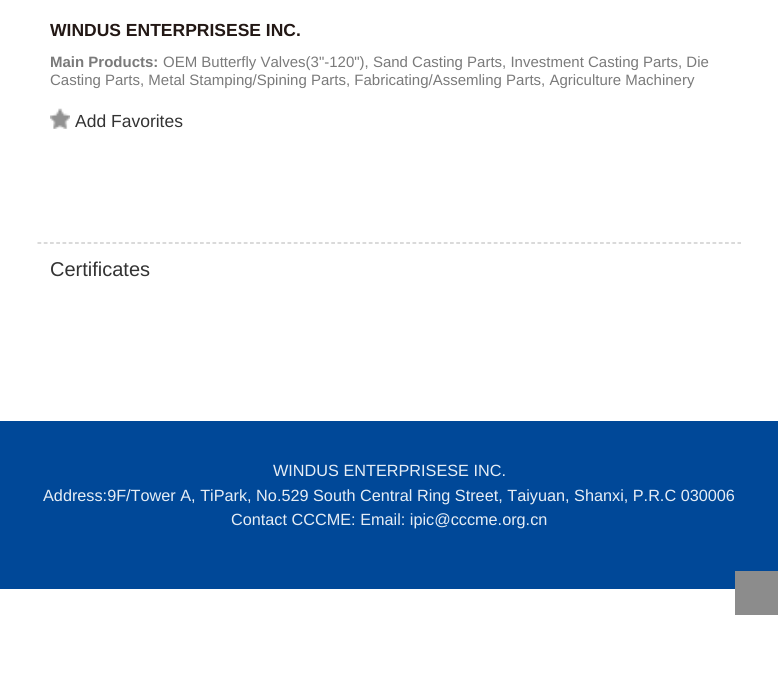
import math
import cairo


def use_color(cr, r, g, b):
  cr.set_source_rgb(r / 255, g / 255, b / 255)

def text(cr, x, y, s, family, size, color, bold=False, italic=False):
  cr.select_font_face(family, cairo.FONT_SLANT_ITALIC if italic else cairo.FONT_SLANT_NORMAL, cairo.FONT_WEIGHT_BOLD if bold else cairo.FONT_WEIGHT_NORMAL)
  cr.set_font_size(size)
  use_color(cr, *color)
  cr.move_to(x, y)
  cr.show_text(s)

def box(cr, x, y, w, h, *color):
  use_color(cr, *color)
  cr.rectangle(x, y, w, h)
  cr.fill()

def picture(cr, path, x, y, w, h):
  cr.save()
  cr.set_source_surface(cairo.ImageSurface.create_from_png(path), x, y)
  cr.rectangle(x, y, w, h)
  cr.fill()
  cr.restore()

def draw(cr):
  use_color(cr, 255, 255, 255)
  cr.paint()
  picture(cr, "img_01.png", 50, 108, 20, 21)
  cr.new_path()
  cr.move_to(37.5, 243)
  cr.line_to(741, 243)
  use_color(cr, 193, 193, 193)
  cr.set_line_width(1.2)
  cr.set_dash([3.75, 2.5])
  cr.stroke()
  box(cr, 0, 421, 778, 168, 0, 72, 152)
  box(cr, 735, 571, 43, 44, 140, 140, 140)
  text(cr, 50, 36, "WINDUS ENTERPRISESE INC.", "Liberation Sans", 17.5, (35, 24, 21), bold=True)
  text(cr, 50, 67, "Main Products:", "Liberation Sans", 15, (122, 122, 122), bold=True)
  text(cr, 163, 67, "OEM Butterfly Valves(3\"-120\"), Sand Casting Parts, Investment Casting Parts, Die", "Liberation Sans", 15, (122, 122, 122))
  text(cr, 50, 85, "Casting Parts, Metal Stamping/Spining Parts, Fabricating/Assemling Parts, Agriculture Machinery", "Liberation Sans", 15, (122, 122, 122))
  text(cr, 75, 127, "Add Favorites", "Liberation Sans", 17.5, (51, 51, 51))
  text(cr, 50, 276, "Certificates", "Liberation Sans", 20, (51, 51, 51))
  text(cr, 273, 476, "WINDUS ENTERPRISESE INC.", "Liberation Sans", 16.25, (230, 237, 245))
  text(cr, 43, 501, "Address:9F/Tower A, TiPark, No.529 South Central Ring Street, Taiyuan, Shanxi, P.R.C 030006", "Liberation Sans", 16.25, (230, 237, 245))
  text(cr, 231, 525, "Contact CCCME: Email: ipic@cccme.org.cn", "Liberation Sans", 16.25, (230, 237, 245))


surface = cairo.ImageSurface(cairo.FORMAT_RGB24, 778, 677)
cr = cairo.Context(surface)
options = cairo.FontOptions()
options.set_hint_metrics(cairo.HINT_METRICS_OFF)
options.set_hint_style(cairo.HINT_STYLE_NONE)
cr.set_font_options(options)
cr.set_miter_limit(4)
draw(cr)
surface.write_to_png("out.png")
